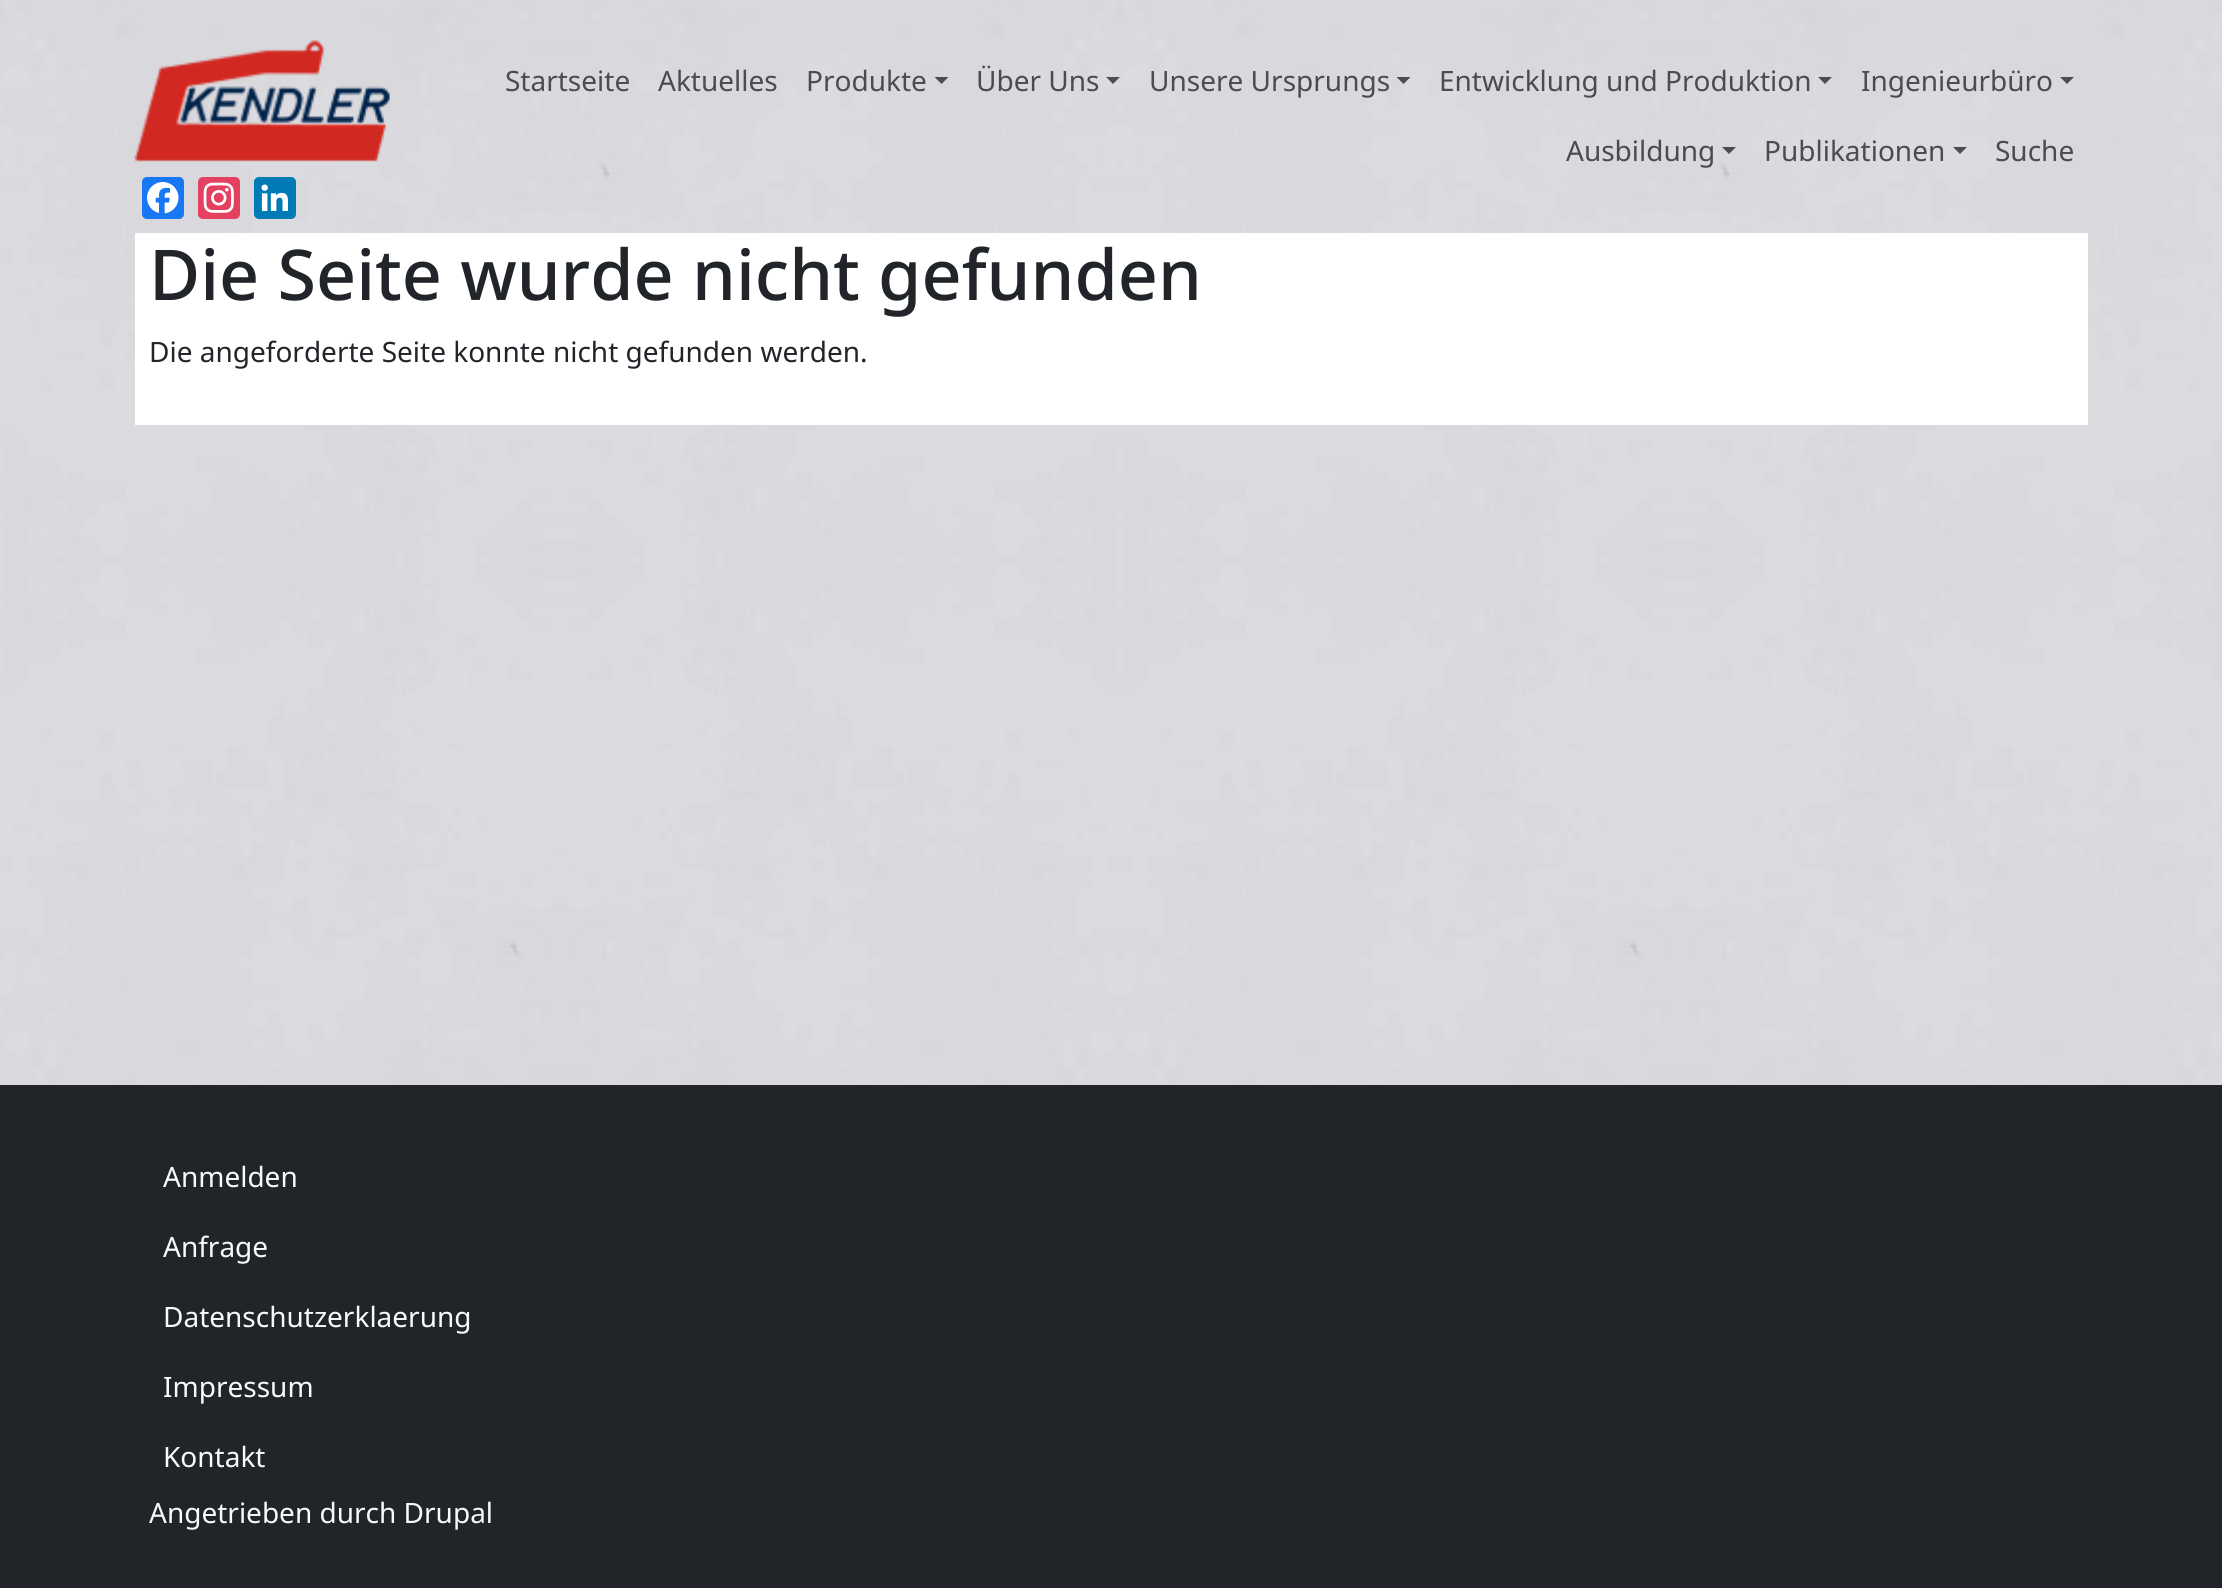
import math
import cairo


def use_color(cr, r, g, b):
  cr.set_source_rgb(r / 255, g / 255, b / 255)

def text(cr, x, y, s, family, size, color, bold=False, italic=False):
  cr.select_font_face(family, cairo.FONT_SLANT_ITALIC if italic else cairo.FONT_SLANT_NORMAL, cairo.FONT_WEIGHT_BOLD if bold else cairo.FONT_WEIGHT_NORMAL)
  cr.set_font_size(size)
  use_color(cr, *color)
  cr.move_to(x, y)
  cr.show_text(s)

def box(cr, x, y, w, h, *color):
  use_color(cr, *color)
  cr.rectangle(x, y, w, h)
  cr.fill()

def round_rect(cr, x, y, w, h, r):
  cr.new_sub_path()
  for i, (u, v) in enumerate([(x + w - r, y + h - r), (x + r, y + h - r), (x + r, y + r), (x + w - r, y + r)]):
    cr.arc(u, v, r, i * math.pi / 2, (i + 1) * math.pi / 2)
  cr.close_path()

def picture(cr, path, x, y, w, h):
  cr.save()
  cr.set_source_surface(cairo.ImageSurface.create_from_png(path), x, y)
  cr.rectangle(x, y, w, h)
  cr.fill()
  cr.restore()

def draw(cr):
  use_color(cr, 255, 255, 255)
  cr.paint()
  picture(cr, "img_01.png", 0, 232, 2222, 853)
  picture(cr, "img_02.png", 0, 0, 2222, 233)
  picture(cr, "img_03.png", 134, 40, 256, 122)
  use_color(cr, 24, 119, 242)
  round_rect(cr, 142, 177, 42, 42, 5)
  cr.fill()
  picture(cr, "img_04.png", 147, 182, 32, 32)
  use_color(cr, 228, 64, 95)
  round_rect(cr, 198, 177, 42, 42, 5)
  cr.fill()
  picture(cr, "img_05.png", 203, 182, 31, 31)
  use_color(cr, 0, 123, 181)
  round_rect(cr, 254, 177, 42, 42, 5)
  cr.fill()
  picture(cr, "img_06.png", 261, 184, 27, 27)
  use_color(cr, 76, 76, 77)
  cr.new_path()
  cr.move_to(934.5, 77)
  cr.line_to(948.5, 77)
  cr.line_to(941.5, 84)
  cr.close_path()
  cr.fill()
  use_color(cr, 77, 77, 78)
  cr.new_path()
  cr.move_to(1106, 77)
  cr.line_to(1120, 77)
  cr.line_to(1113, 84)
  cr.close_path()
  cr.fill()
  cr.set_source_rgba(0, 0, 0, 0.65)
  cr.new_path()
  cr.move_to(1396.5, 77)
  cr.line_to(1410.5, 77)
  cr.line_to(1403.5, 84)
  cr.close_path()
  cr.fill()
  use_color(cr, 76, 76, 77)
  cr.new_path()
  cr.move_to(1818, 77)
  cr.line_to(1832, 77)
  cr.line_to(1825, 84)
  cr.close_path()
  cr.fill()
  cr.new_path()
  cr.move_to(2060, 77)
  cr.line_to(2074, 77)
  cr.line_to(2067, 84)
  cr.close_path()
  cr.fill()
  cr.new_path()
  cr.move_to(1722, 147)
  cr.line_to(1736, 147)
  cr.line_to(1729, 154)
  cr.close_path()
  cr.fill()
  use_color(cr, 77, 77, 78)
  cr.new_path()
  cr.move_to(1953, 147)
  cr.line_to(1967, 147)
  cr.line_to(1960, 154)
  cr.close_path()
  cr.fill()
  box(cr, 135, 233, 1953, 192, 255, 255, 255)
  box(cr, 0, 1085, 2222, 503, 33, 37, 41)
  text(cr, 505, 91, "Startseite", "Noto Sans", 28, (76, 76, 77))
  text(cr, 658, 91, "Aktuelles", "Noto Sans", 28, (76, 76, 77))
  text(cr, 806, 91, "Produkte", "Noto Sans", 28, (76, 76, 77))
  text(cr, 976, 91, "Über Uns", "Noto Sans", 28, (76, 76, 77))
  text(cr, 1149, 91, "Unsere Ursprungs", "Noto Sans", 28, (76, 76, 77))
  text(cr, 1439, 91, "Entwicklung und Produktion", "Noto Sans", 28, (76, 76, 77))
  text(cr, 1861, 91, "Ingenieurbüro", "Noto Sans", 28, (76, 76, 77))
  text(cr, 1566, 161, "Ausbildung", "Noto Sans", 28, (76, 76, 77))
  text(cr, 1764, 161, "Publikationen", "Noto Sans", 28, (76, 76, 77))
  text(cr, 1995, 161, "Suche", "Noto Sans", 28, (76, 76, 77))
  text(cr, 149, 300, "Die Seite wurde nicht gefunden", "Noto Sans Medium", 70, (33, 37, 41))
  text(cr, 149, 362, "Die angeforderte Seite konnte nicht gefunden werden.", "Noto Sans", 28, (33, 37, 41))
  text(cr, 163, 1187, "Anmelden", "Noto Sans", 28, (248, 249, 250))
  text(cr, 163, 1257, "Anfrage", "Noto Sans", 28, (248, 249, 250))
  text(cr, 163, 1327, "Datenschutzerklaerung", "Noto Sans", 28, (248, 249, 250))
  text(cr, 163, 1397, "Impressum", "Noto Sans", 28, (248, 249, 250))
  text(cr, 163, 1467, "Kontakt", "Noto Sans", 28, (248, 249, 250))
  text(cr, 149, 1523, "Angetrieben durch Drupal", "Noto Sans", 28, (248, 249, 250))


surface = cairo.ImageSurface(cairo.FORMAT_RGB24, 2222, 1588)
cr = cairo.Context(surface)
options = cairo.FontOptions()
options.set_hint_metrics(cairo.HINT_METRICS_OFF)
options.set_hint_style(cairo.HINT_STYLE_NONE)
cr.set_font_options(options)
cr.set_miter_limit(4)
draw(cr)
surface.write_to_png("out.png")
